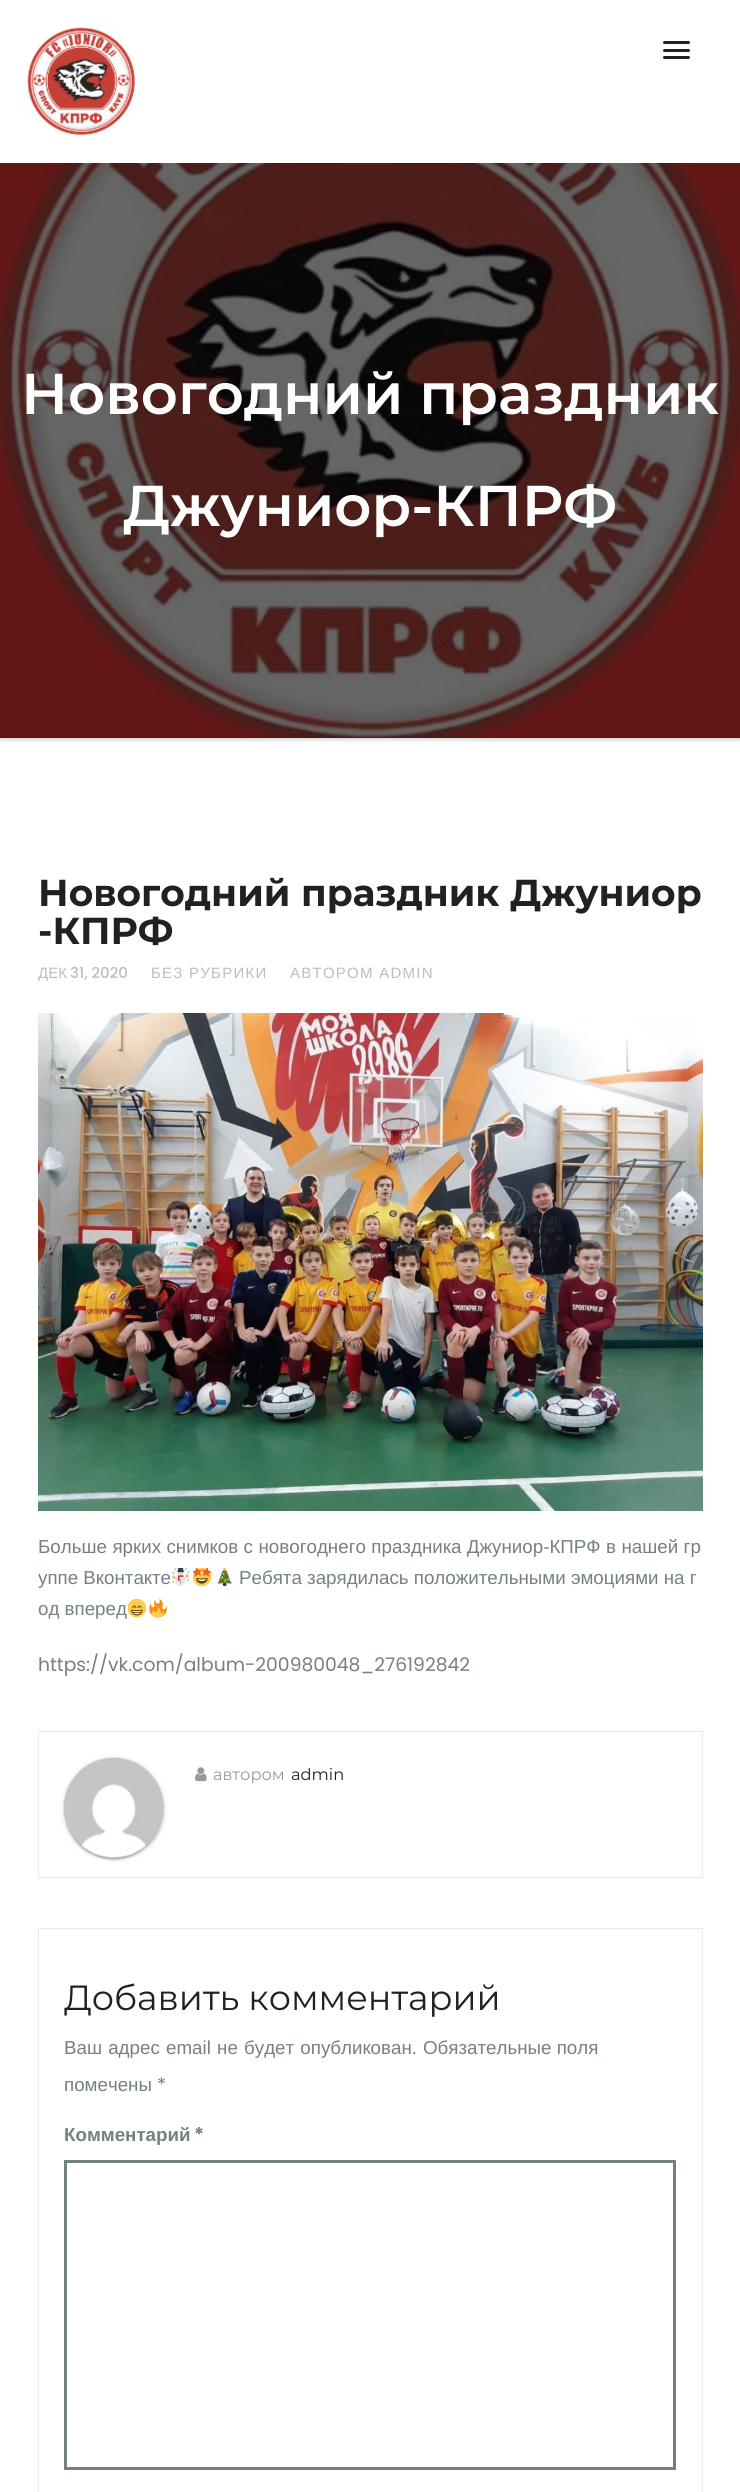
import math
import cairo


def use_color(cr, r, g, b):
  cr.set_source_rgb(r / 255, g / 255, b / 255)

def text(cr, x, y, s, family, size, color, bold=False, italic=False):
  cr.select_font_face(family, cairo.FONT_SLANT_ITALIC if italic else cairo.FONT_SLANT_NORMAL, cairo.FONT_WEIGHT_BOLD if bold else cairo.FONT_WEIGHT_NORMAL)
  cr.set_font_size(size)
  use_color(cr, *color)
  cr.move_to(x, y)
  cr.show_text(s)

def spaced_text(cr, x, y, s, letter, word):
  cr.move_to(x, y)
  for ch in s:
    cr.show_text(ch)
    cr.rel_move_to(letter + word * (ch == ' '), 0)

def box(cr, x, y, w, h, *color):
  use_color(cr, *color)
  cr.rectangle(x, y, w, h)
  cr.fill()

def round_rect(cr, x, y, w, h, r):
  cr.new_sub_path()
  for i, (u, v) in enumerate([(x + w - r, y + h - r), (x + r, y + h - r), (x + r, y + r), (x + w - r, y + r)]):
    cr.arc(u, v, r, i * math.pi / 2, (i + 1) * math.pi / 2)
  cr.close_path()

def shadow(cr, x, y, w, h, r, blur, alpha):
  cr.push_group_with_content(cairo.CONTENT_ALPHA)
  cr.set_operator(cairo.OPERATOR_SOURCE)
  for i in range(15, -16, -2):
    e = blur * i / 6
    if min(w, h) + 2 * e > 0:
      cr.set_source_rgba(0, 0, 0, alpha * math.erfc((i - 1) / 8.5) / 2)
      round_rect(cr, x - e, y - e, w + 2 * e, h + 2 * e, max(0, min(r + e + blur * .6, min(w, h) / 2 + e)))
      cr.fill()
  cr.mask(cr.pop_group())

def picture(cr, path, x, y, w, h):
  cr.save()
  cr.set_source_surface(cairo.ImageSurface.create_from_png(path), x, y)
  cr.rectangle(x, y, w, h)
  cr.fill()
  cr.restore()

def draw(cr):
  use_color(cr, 255, 255, 255)
  cr.paint()
  use_color(cr, 170, 170, 170)
  shadow(cr, 0, 163, 740, 575, 0, 3, 1)
  box(cr, 0, 157, 740, 6, 255, 255, 255)
  picture(cr, "img_01.png", 27, 27, 108, 108)
  use_color(cr, 34, 34, 34)
  round_rect(cr, 663, 41, 27, 3, 1.5)
  cr.fill()
  round_rect(cr, 663, 49, 27, 3, 1.5)
  cr.fill()
  round_rect(cr, 663, 56, 27, 3, 1.5)
  cr.fill()
  picture(cr, "img_02.png", 0, 163, 740, 575)
  picture(cr, "img_03.png", 38, 1013, 665, 498)
  picture(cr, "img_04.png", 172, 1568, 18, 18)
  picture(cr, "img_05.png", 193, 1568, 18, 18)
  picture(cr, "img_06.png", 217, 1568, 15, 18)
  picture(cr, "img_07.png", 128, 1599, 18, 19)
  picture(cr, "img_08.png", 149, 1599, 18, 19)
  cr.rectangle(38.5, 1731.5, 664, 146)
  use_color(cr, 234, 234, 234)
  cr.set_line_width(1)
  cr.stroke()
  use_color(cr, 0, 0, 0)
  shadow(cr, 64, 1759, 100, 100, 50, 3, 0.12)
  shadow(cr, 66, 1764, 95, 95, 47.5, 0.5, 0.2)
  shadow(cr, 64, 1760, 100, 100, 50, 1, 0.14)
  picture(cr, "img_09.png", 63, 1757, 101, 101)
  picture(cr, "img_10.png", 195, 1767, 12, 15)
  cr.rectangle(38.5, 1928.5, 664, 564)
  use_color(cr, 234, 234, 234)
  cr.stroke()
  cr.rectangle(65.5, 2161.5, 609, 307)
  use_color(cr, 116, 129, 130)
  cr.set_line_width(3)
  cr.stroke()
  text(cr, 21, 414, "Новогодний праздник", "Montserrat SemiBold", 57.5, (255, 255, 255))
  text(cr, 123, 526, "Джуниор-КПРФ", "Montserrat SemiBold", 57.5, (255, 255, 255))
  text(cr, 38, 906, "Новогодний праздник Джуниор", "Montserrat", 37.5, (33, 33, 33), bold=True)
  text(cr, 38, 944, "-КПРФ", "Montserrat", 37.5, (33, 33, 33), bold=True)
  text(cr, 38, 978, "ДЕК", "Liberation Sans", 15, (189, 189, 189))
  text(cr, 70, 978, "31, 2020", "Poppins Medium", 15, (189, 189, 189))
  cr.select_font_face("Liberation Sans")
  spaced_text(cr, 151, 978, "БЕЗ РУБРИКИ", 1.25, 0)
  spaced_text(cr, 290, 978, "АВТОРОМ ADMIN", 1.25, 0)
  cr.set_font_size(18.75)
  use_color(cr, 116, 129, 130)
  spaced_text(cr, 38, 1553, "Больше ярких снимков с новогоднего праздника Джуниор-КПРФ в нашей гр", 0, 0.25)
  text(cr, 38, 1584, "уппе Вконтакте", "Liberation Sans", 18.75, (116, 129, 130))
  text(cr, 239, 1584, "Ребята зарядилась положительными эмоциями на г", "Liberation Sans", 18.75, (116, 129, 130))
  text(cr, 38, 1615, "од вперед", "Liberation Sans", 18.75, (116, 129, 130))
  text(cr, 38, 1671, "https://vk.com/album-200980048_276192842", "Poppins", 18.75, (116, 129, 130))
  text(cr, 213, 1780, "автором", "Montserrat", 16.25, (153, 153, 153))
  text(cr, 291, 1780, "admin", "Montserrat", 16.25, (33, 33, 33))
  text(cr, 64, 2010, "Добавить комментарий", "Montserrat", 35, (33, 33, 33))
  cr.select_font_face("Liberation Sans")
  cr.set_font_size(18.75)
  use_color(cr, 116, 129, 130)
  spaced_text(cr, 64, 2054, "Ваш адрес email не будет опубликован.", 0, 1)
  text(cr, 423, 2054, "Обязательные поля", "Liberation Sans", 18.75, (116, 129, 130))
  text(cr, 64, 2091, "помечены", "Liberation Sans", 18.75, (116, 129, 130))
  text(cr, 157, 2091, "*", "Poppins", 18.75, (116, 129, 130))
  text(cr, 64, 2141, "Комментарий", "Liberation Sans", 18.75, (116, 129, 130), bold=True)
  text(cr, 194, 2141, "*", "Poppins", 18.75, (116, 129, 130), bold=True)


surface = cairo.ImageSurface(cairo.FORMAT_RGB24, 740, 2492)
cr = cairo.Context(surface)
options = cairo.FontOptions()
options.set_hint_metrics(cairo.HINT_METRICS_OFF)
options.set_hint_style(cairo.HINT_STYLE_NONE)
cr.set_font_options(options)
cr.set_miter_limit(4)
draw(cr)
surface.write_to_png("out.png")
